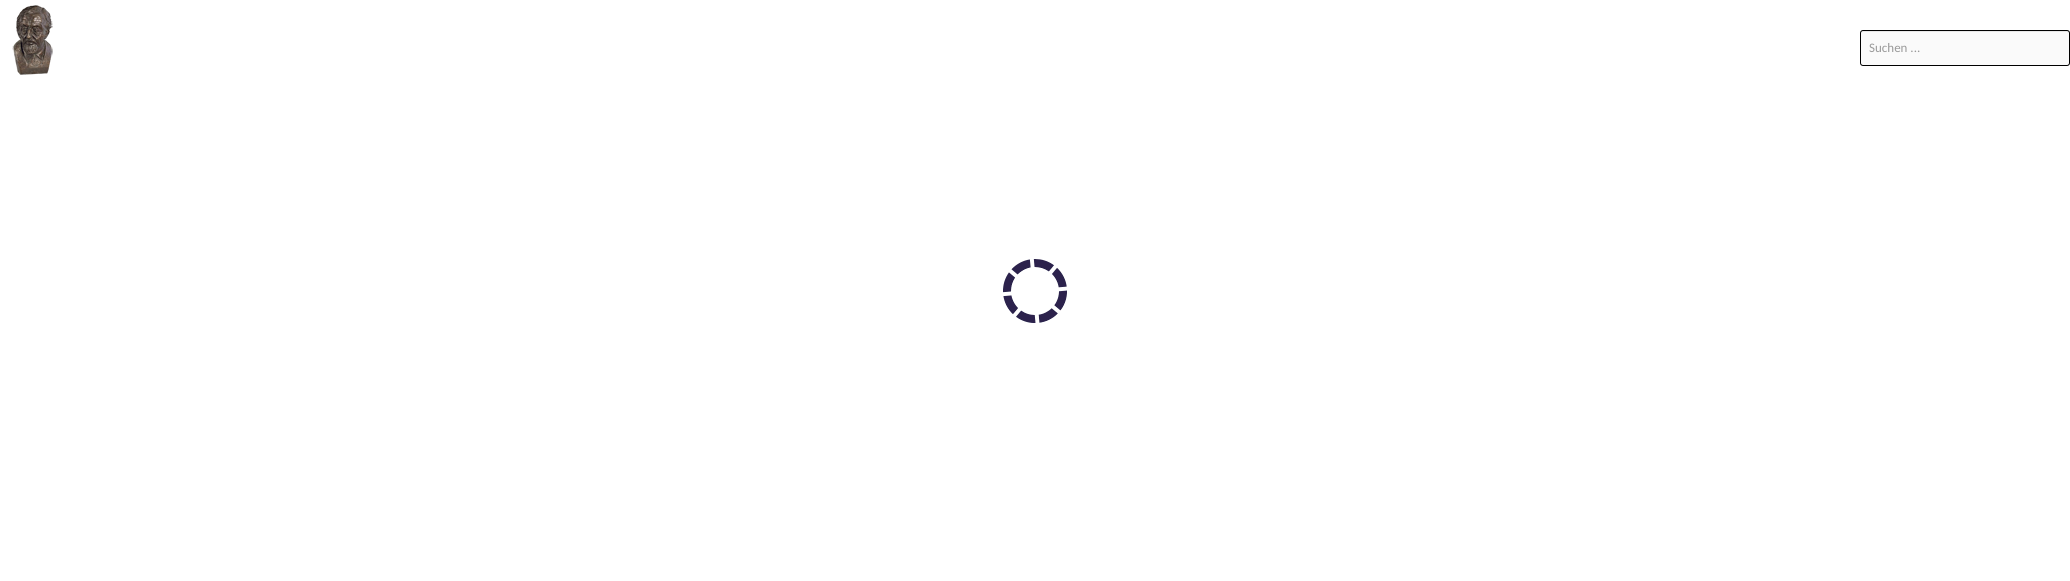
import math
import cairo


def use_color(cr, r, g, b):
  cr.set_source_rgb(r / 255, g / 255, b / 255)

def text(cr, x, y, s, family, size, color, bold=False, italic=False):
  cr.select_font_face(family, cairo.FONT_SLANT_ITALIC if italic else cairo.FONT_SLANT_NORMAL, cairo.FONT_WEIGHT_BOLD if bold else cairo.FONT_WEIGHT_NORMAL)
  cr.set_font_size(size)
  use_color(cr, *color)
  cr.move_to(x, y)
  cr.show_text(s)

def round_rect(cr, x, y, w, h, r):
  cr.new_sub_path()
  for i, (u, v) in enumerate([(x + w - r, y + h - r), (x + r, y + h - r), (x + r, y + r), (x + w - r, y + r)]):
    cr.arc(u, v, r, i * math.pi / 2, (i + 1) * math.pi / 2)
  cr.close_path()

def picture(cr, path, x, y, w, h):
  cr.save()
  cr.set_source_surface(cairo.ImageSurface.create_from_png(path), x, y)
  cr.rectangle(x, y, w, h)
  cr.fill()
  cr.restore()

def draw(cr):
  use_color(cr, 255, 255, 255)
  cr.paint()
  picture(cr, "img_01.png", 12, 5, 41, 70)
  use_color(cr, 250, 250, 250)
  round_rect(cr, 1860, 30, 210, 36, 3)
  cr.fill()
  use_color(cr, 231, 231, 231)
  cr.new_path()
  cr.move_to(1863, 32)
  cr.line_to(2067, 32)
  cr.line_to(2069, 33)
  cr.line_to(2069, 34)
  cr.curve_to(2069, 33, 2069, 31, 2067, 31)
  cr.line_to(1863, 31)
  cr.curve_to(1861, 31, 1861, 33, 1861, 34)
  cr.curve_to(1861, 33, 1862, 32, 1863, 32)
  cr.close_path()
  cr.fill()
  round_rect(cr, 1860.5, 30.5, 209, 35, 2.5)
  use_color(cr, 0, 0, 0)
  cr.set_line_width(1)
  cr.stroke()
  picture(cr, "img_02.png", 1003, 259, 64, 64)
  text(cr, 1869, 52, "Suchen ...", "Carlito", 13, (153, 153, 153))


surface = cairo.ImageSurface(cairo.FORMAT_RGB24, 2070, 581)
cr = cairo.Context(surface)
options = cairo.FontOptions()
options.set_hint_metrics(cairo.HINT_METRICS_OFF)
options.set_hint_style(cairo.HINT_STYLE_NONE)
cr.set_font_options(options)
cr.set_miter_limit(4)
draw(cr)
surface.write_to_png("out.png")
